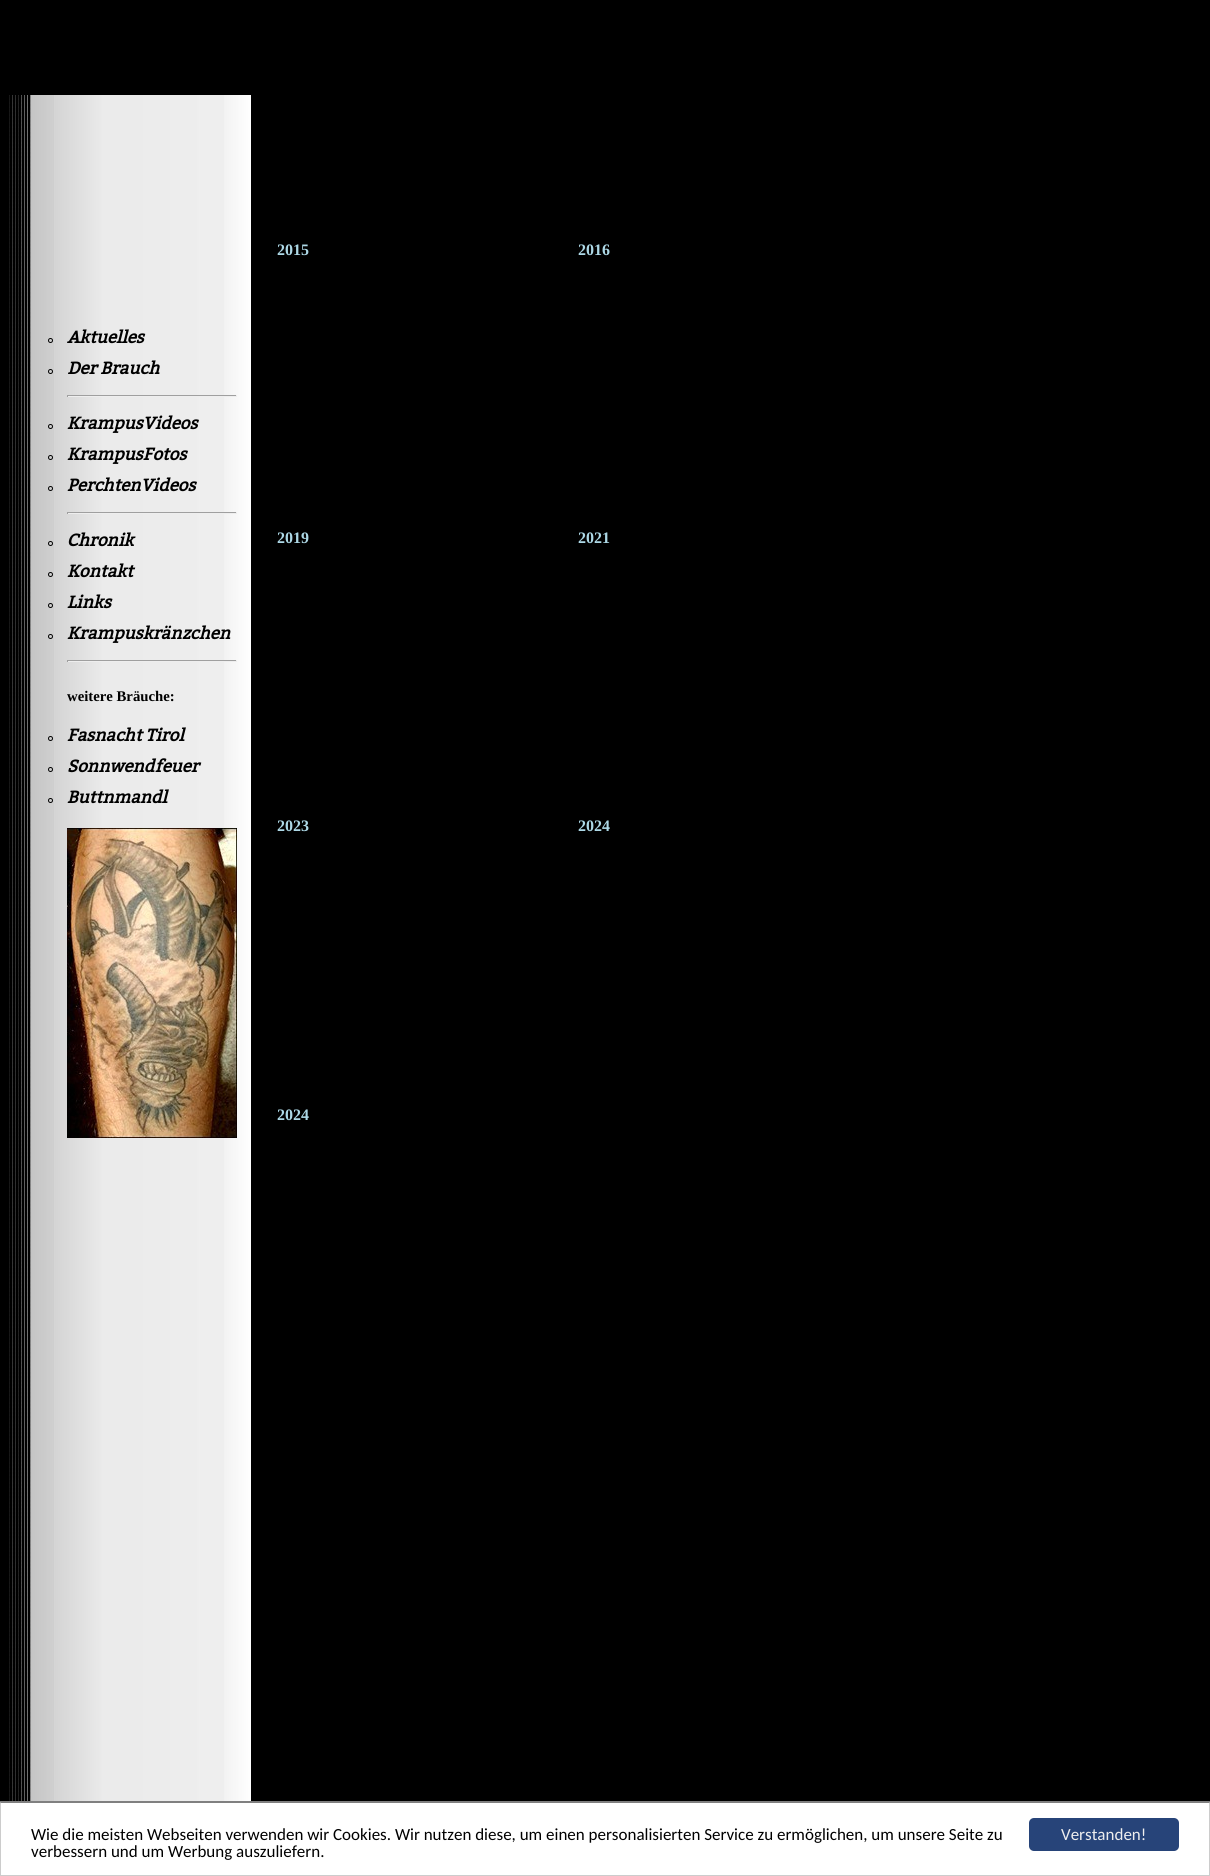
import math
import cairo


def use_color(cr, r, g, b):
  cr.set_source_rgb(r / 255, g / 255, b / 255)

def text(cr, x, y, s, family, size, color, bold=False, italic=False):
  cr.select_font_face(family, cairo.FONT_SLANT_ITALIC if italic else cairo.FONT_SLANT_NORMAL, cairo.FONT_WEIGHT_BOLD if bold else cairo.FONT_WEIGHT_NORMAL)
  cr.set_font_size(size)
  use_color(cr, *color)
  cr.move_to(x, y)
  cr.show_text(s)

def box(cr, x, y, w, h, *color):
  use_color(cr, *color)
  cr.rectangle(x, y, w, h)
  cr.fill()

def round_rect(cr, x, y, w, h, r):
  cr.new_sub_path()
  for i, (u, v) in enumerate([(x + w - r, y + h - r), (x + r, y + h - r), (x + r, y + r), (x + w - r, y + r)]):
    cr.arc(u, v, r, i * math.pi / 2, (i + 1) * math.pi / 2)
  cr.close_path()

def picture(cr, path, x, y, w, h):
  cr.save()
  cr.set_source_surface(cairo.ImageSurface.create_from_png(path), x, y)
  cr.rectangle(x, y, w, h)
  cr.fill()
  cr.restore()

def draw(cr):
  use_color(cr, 0, 0, 0)
  cr.paint()
  picture(cr, "img_01.png", 9, 95, 242, 1706)
  cr.arc(50.5, 340.5, 2, 0, 2 * math.pi)
  use_color(cr, 0, 0, 0)
  cr.set_line_width(1)
  cr.stroke()
  cr.arc(50.5, 371.5, 2, 0, 2 * math.pi)
  cr.stroke()
  box(cr, 67, 395, 170, 1, 159, 159, 159)
  box(cr, 236, 395, 1, 2, 238, 238, 238)
  box(cr, 67, 396, 170, 1, 238, 238, 238)
  box(cr, 67, 395, 1, 2, 159, 159, 159)
  cr.arc(50.5, 426.5, 2, 0, 2 * math.pi)
  use_color(cr, 0, 0, 0)
  cr.stroke()
  cr.arc(50.5, 457.5, 2, 0, 2 * math.pi)
  cr.stroke()
  cr.arc(50.5, 488.5, 2, 0, 2 * math.pi)
  cr.stroke()
  box(cr, 67, 512, 170, 1, 159, 159, 159)
  box(cr, 236, 512, 1, 2, 238, 238, 238)
  box(cr, 67, 513, 170, 1, 238, 238, 238)
  box(cr, 67, 512, 1, 2, 159, 159, 159)
  cr.arc(50.5, 543.5, 2, 0, 2 * math.pi)
  use_color(cr, 0, 0, 0)
  cr.stroke()
  cr.arc(50.5, 574.5, 2, 0, 2 * math.pi)
  cr.stroke()
  cr.arc(50.5, 605.5, 2, 0, 2 * math.pi)
  cr.stroke()
  cr.arc(50.5, 636.5, 2, 0, 2 * math.pi)
  cr.stroke()
  box(cr, 67, 660, 170, 1, 159, 159, 159)
  box(cr, 236, 660, 1, 2, 238, 238, 238)
  box(cr, 67, 661, 170, 1, 238, 238, 238)
  box(cr, 67, 660, 1, 2, 159, 159, 159)
  cr.arc(50.5, 738.5, 2, 0, 2 * math.pi)
  use_color(cr, 0, 0, 0)
  cr.stroke()
  cr.arc(50.5, 769.5, 2, 0, 2 * math.pi)
  cr.stroke()
  cr.arc(50.5, 800.5, 2, 0, 2 * math.pi)
  cr.stroke()
  picture(cr, "img_02.png", 67, 828, 170, 310)
  box(cr, 1, 1803, 1208, 72, 255, 255, 255)
  use_color(cr, 128, 128, 128)
  cr.new_path()
  cr.move_to(0, 1801)
  cr.line_to(1210, 1801)
  cr.line_to(1209, 1803)
  cr.line_to(1, 1803)
  cr.close_path()
  cr.fill()
  use_color(cr, 204, 204, 204)
  cr.new_path()
  cr.move_to(1210, 1801)
  cr.line_to(1210, 1876)
  cr.line_to(1209, 1875)
  cr.line_to(1209, 1803)
  cr.close_path()
  cr.fill()
  box(cr, 0, 1875, 1210, 1, 204, 204, 204)
  cr.new_path()
  cr.move_to(0, 1876)
  cr.line_to(0, 1801)
  cr.line_to(1, 1803)
  cr.line_to(1, 1875)
  cr.close_path()
  cr.fill()
  use_color(cr, 39, 68, 121)
  round_rect(cr, 1029, 1818, 150, 33, 5)
  cr.fill()
  text(cr, 67, 343, "Aktuelles", "Bitter", 17, (0, 0, 0), bold=True, italic=True)
  text(cr, 67, 374, "Der Brauch", "Bitter", 17, (0, 0, 0), bold=True, italic=True)
  text(cr, 67, 429, "KrampusVideos", "Bitter", 17, (0, 0, 0), bold=True, italic=True)
  text(cr, 67, 460, "KrampusFotos", "Bitter", 17, (0, 0, 0), bold=True, italic=True)
  text(cr, 67, 491, "PerchtenVideos", "Bitter", 17, (0, 0, 0), bold=True, italic=True)
  text(cr, 67, 546, "Chronik", "Bitter", 17, (0, 0, 0), bold=True, italic=True)
  text(cr, 67, 577, "Kontakt", "Bitter", 17, (0, 0, 0), bold=True, italic=True)
  text(cr, 67, 608, "Links", "Bitter", 17, (0, 0, 0), bold=True, italic=True)
  text(cr, 67, 639, "Krampuskränzchen", "Bitter", 17, (0, 0, 0), bold=True, italic=True)
  text(cr, 67, 701, "weitere Bräuche:", "Liberation Serif", 14.75, (0, 0, 0), bold=True)
  text(cr, 67, 741, "Fasnacht Tirol", "Bitter", 17, (0, 0, 0), bold=True, italic=True)
  text(cr, 67, 772, "Sonnwendfeuer", "Bitter", 17, (0, 0, 0), bold=True, italic=True)
  text(cr, 67, 803, "Buttnmandl", "Bitter", 17, (0, 0, 0), bold=True, italic=True)
  text(cr, 277, 255, "2015", "Liberation Serif", 16, (173, 216, 230), bold=True)
  text(cr, 578, 255, "2016", "Liberation Serif", 16, (173, 216, 230), bold=True)
  text(cr, 277, 543, "2019", "Liberation Serif", 16, (173, 216, 230), bold=True)
  text(cr, 578, 543, "2021", "Liberation Serif", 16, (173, 216, 230), bold=True)
  text(cr, 277, 831, "2023", "Liberation Serif", 16, (173, 216, 230), bold=True)
  text(cr, 578, 831, "2024", "Liberation Serif", 16, (173, 216, 230), bold=True)
  text(cr, 277, 1120, "2024", "Liberation Serif", 16, (173, 216, 230), bold=True)
  text(cr, 31, 1840, "Wie die meisten Webseiten verwenden wir Cookies. Wir nutzen diese, um einen personalisierten Service zu ermöglichen, um unsere Seite zu", "Carlito", 17, (0, 0, 0))
  text(cr, 31, 1857, "verbessern und um Werbung auszuliefern.", "Carlito", 17, (0, 0, 0))
  text(cr, 1061, 1840, "Verstanden!", "Carlito", 17, (238, 238, 238))


surface = cairo.ImageSurface(cairo.FORMAT_RGB24, 1210, 1876)
cr = cairo.Context(surface)
options = cairo.FontOptions()
options.set_hint_metrics(cairo.HINT_METRICS_OFF)
options.set_hint_style(cairo.HINT_STYLE_NONE)
cr.set_font_options(options)
cr.set_miter_limit(4)
draw(cr)
surface.write_to_png("out.png")
